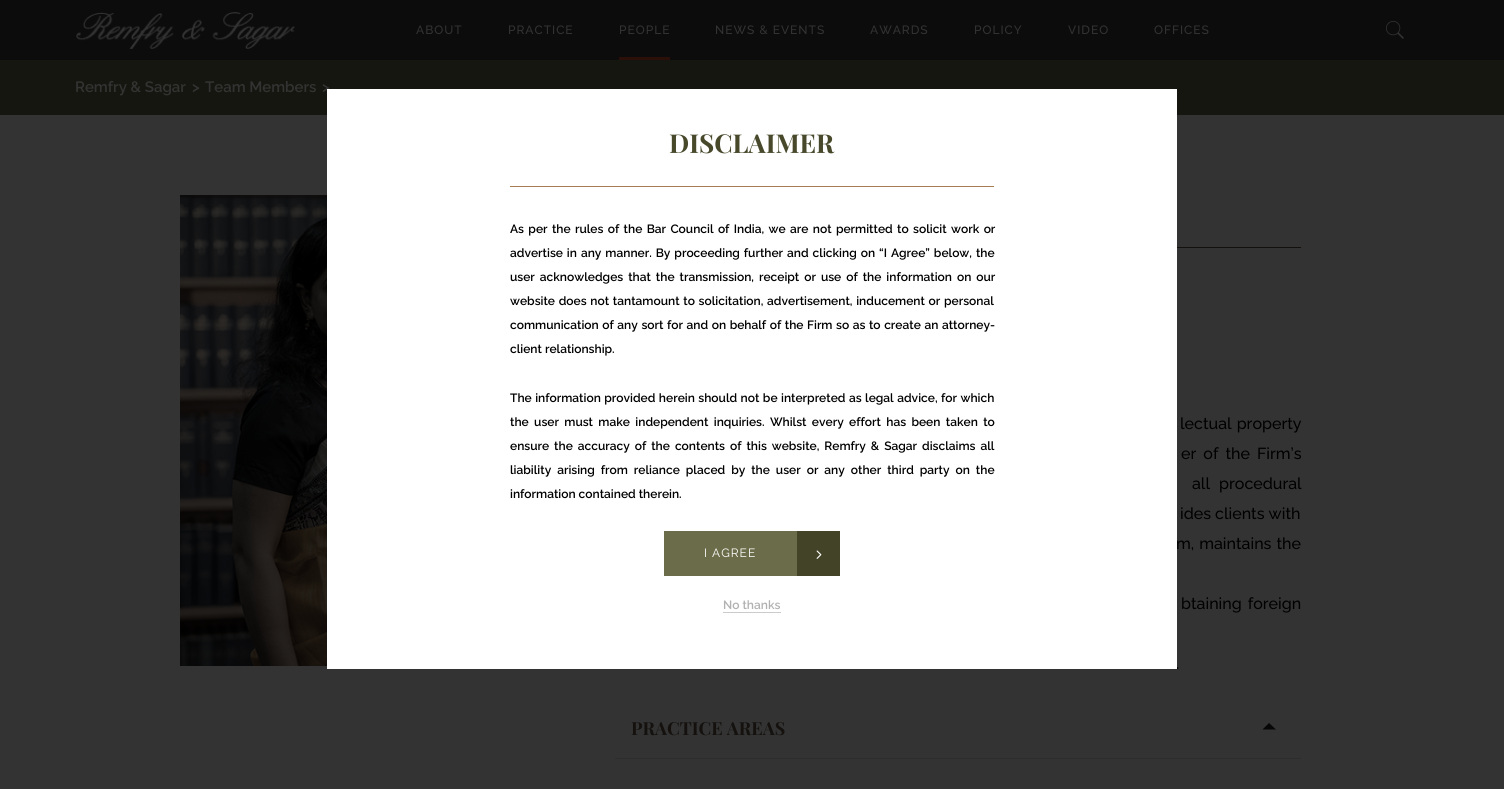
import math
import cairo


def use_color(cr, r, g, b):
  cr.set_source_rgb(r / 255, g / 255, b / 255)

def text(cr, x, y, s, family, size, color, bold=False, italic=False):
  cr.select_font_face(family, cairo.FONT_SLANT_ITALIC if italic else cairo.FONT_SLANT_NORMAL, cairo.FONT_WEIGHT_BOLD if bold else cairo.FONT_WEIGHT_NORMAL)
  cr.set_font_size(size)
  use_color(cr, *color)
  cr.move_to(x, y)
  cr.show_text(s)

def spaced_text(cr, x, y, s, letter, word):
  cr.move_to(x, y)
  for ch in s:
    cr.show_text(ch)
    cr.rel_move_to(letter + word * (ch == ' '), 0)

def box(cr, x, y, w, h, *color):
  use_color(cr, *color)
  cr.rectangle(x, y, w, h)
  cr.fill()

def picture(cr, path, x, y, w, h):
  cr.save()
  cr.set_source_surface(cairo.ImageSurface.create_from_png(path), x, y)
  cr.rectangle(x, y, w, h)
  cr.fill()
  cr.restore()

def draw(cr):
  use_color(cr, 51, 51, 51)
  cr.paint()
  box(cr, 0, 0, 1504, 60, 12, 12, 12)
  picture(cr, "img_01.png", 76, 12, 219, 37)
  box(cr, 619, 57, 51, 3, 42, 16, 8)
  picture(cr, "img_02.png", 1386, 21, 18, 18)
  box(cr, 0, 60, 1504, 55, 21, 22, 15)
  picture(cr, "img_03.png", 180, 195, 147, 471)
  box(cr, 1177, 247, 124, 1, 19, 16, 13)
  box(cr, 615, 758, 686, 1, 45, 45, 45)
  use_color(cr, 7, 7, 7)
  cr.new_path()
  cr.move_to(1276, 729.5)
  cr.line_to(1262.5, 729.5)
  cr.line_to(1269, 723)
  cr.close_path()
  cr.fill()
  cr.select_font_face("Raleway Medium")
  cr.set_font_size(12)
  use_color(cr, 51, 51, 51)
  spaced_text(cr, 416, 34, "ABOUT", 1, 0)
  spaced_text(cr, 508, 34, "PRACTICE", 1, 0)
  spaced_text(cr, 619, 34, "PEOPLE", 1, 0)
  spaced_text(cr, 715, 34, "NEWS & EVENTS", 1, 0)
  spaced_text(cr, 870, 34, "AWARDS", 1, 0)
  spaced_text(cr, 974, 34, "POLICY", 1, 0)
  spaced_text(cr, 1068, 34, "VIDEO", 1, 0)
  spaced_text(cr, 1154, 34, "OFFICES", 1, 0)
  text(cr, 75, 92, "Remfry & Sagar", "Raleway SemiBold", 15, (51, 51, 51))
  text(cr, 192, 92, ">", "Raleway SemiBold", 15, (51, 51, 51))
  text(cr, 205, 92, "Team Members", "Raleway SemiBold", 15, (51, 51, 51))
  text(cr, 322, 92, ">", "Raleway SemiBold", 15, (51, 51, 51))
  cr.select_font_face("Raleway Medium")
  cr.set_font_size(16)
  use_color(cr, 0, 0, 0)
  spaced_text(cr, 1180, 429, "lectual property", 0, 1)
  spaced_text(cr, 1181, 459, "er of the Firm’s", 0, 3)
  spaced_text(cr, 1192, 489, "all procedural", 0, 5)
  text(cr, 1180, 519, "ides clients with", "Raleway Medium", 16, (0, 0, 0))
  spaced_text(cr, 1176, 549, "m, maintains the", 0, 1)
  spaced_text(cr, 1181, 609, "btaining foreign", 0, 2)
  text(cr, 1176, 669, ".", "Raleway Medium", 16, (0, 0, 0))
  text(cr, 631, 735, "PRACTICE AREAS", "Playfair Display", 18, (20, 17, 14), bold=True)
  box(cr, 327, 89, 850, 580, 255, 255, 255)
  text(cr, 669, 153, "DISCLAIMER", "Playfair Display", 26, (72, 73, 43), bold=True)
  box(cr, 510, 186, 484, 1, 166, 124, 82)
  cr.select_font_face("Raleway SemiBold")
  cr.set_font_size(12)
  use_color(cr, 0, 0, 0)
  spaced_text(cr, 510, 233, "As per the rules of the Bar Council of India, we are not permitted to solicit work or", 0, 1.4)
  spaced_text(cr, 510, 257, "advertise in any manner. By proceeding further and clicking on “I Agree” below, the", 0, 1)
  spaced_text(cr, 510, 281, "user acknowledges that the transmission, receipt or use of the information on our", 0, 2)
  spaced_text(cr, 510, 305, "website does not tantamount to solicitation, advertisement, inducement or personal", 0, 0.75)
  spaced_text(cr, 510, 329, "communication of any sort for and on behalf of the Firm so as to create an attorney-", 0, 0.6)
  text(cr, 510, 353, "client relationship.", "Raleway SemiBold", 12, (0, 0, 0))
  spaced_text(cr, 510, 402, "The information provided herein should not be interpreted as legal advice, for which", 0, 0.5)
  spaced_text(cr, 510, 426, "the user must make independent inquiries. Whilst every effort has been taken to", 0, 2.4)
  spaced_text(cr, 510, 450, "ensure the accuracy of the contents of this website, Remfry & Sagar disclaims all", 0, 2)
  spaced_text(cr, 510, 474, "liability arising from reliance placed by the user or any other third party on the", 0, 3)
  text(cr, 510, 498, "information contained therein.", "Raleway SemiBold", 12, (0, 0, 0))
  box(cr, 664, 531, 133, 45, 107, 108, 73)
  cr.select_font_face("Raleway")
  use_color(cr, 255, 255, 255)
  spaced_text(cr, 704, 557, "I AGREE", 1, 0)
  box(cr, 797, 531, 43, 45, 66, 67, 39)
  picture(cr, "img_04.png", 816, 550, 6, 9)
  text(cr, 723, 609, "No thanks", "Raleway SemiBold", 12, (177, 177, 177))
  box(cr, 723, 612, 58, 1, 203, 203, 203)


surface = cairo.ImageSurface(cairo.FORMAT_RGB24, 1504, 789)
cr = cairo.Context(surface)
options = cairo.FontOptions()
options.set_hint_metrics(cairo.HINT_METRICS_OFF)
options.set_hint_style(cairo.HINT_STYLE_NONE)
cr.set_font_options(options)
cr.set_miter_limit(4)
draw(cr)
surface.write_to_png("out.png")
